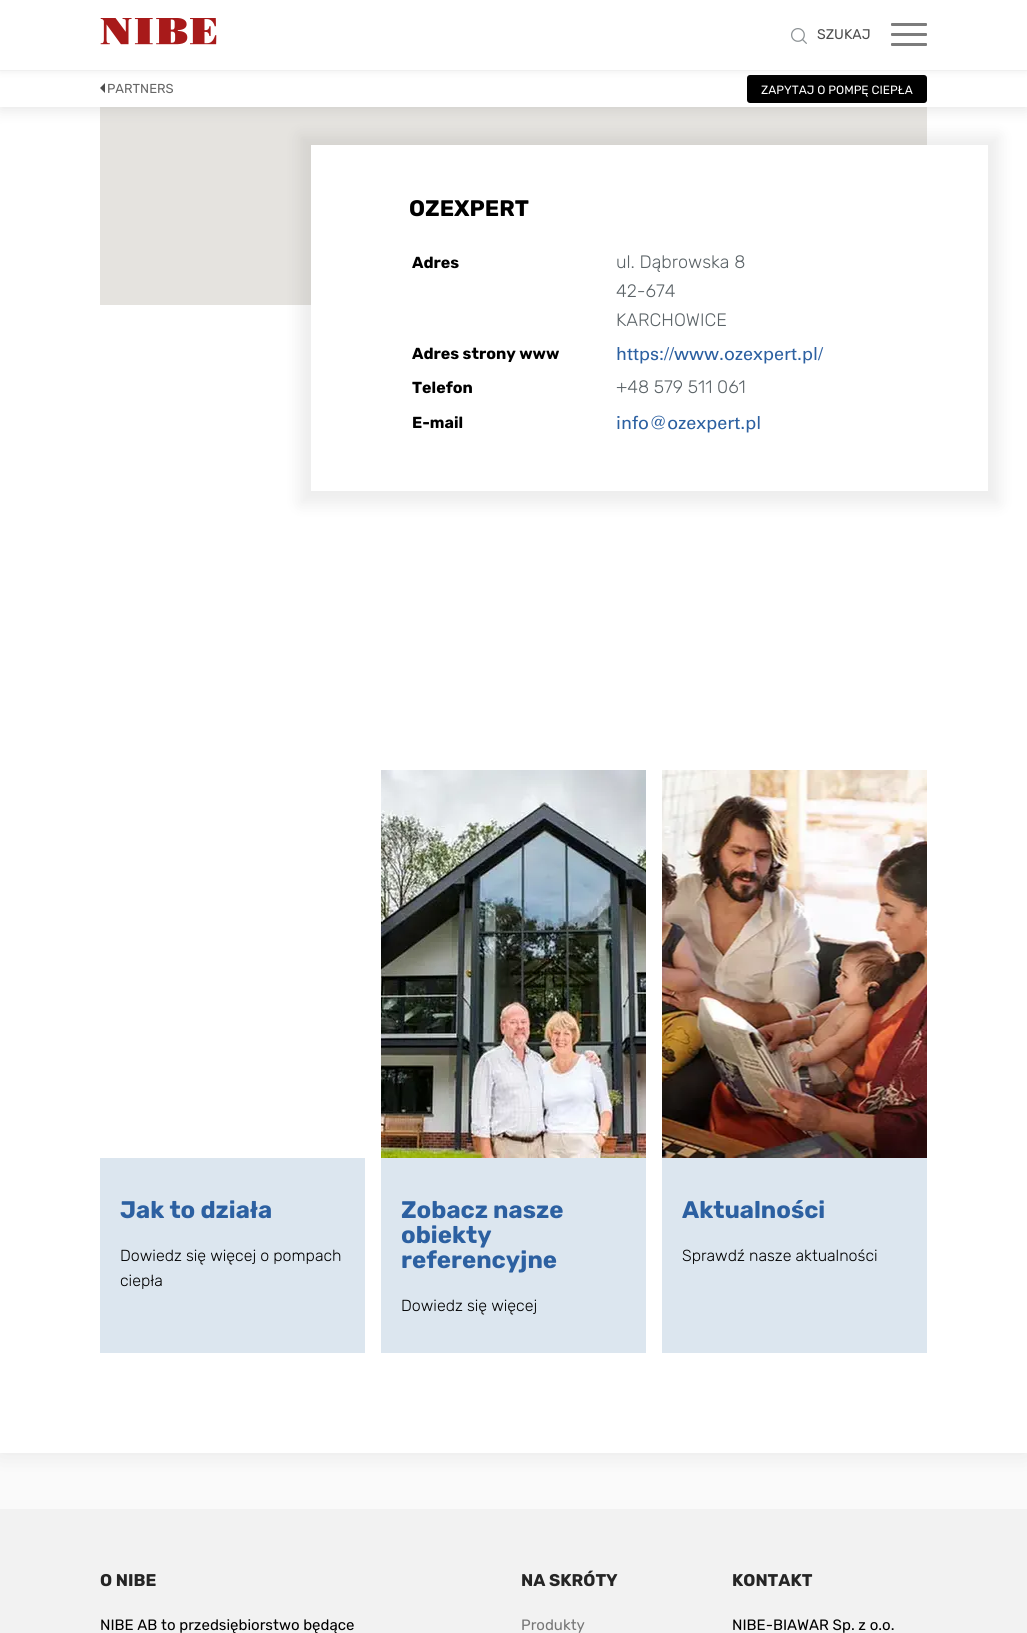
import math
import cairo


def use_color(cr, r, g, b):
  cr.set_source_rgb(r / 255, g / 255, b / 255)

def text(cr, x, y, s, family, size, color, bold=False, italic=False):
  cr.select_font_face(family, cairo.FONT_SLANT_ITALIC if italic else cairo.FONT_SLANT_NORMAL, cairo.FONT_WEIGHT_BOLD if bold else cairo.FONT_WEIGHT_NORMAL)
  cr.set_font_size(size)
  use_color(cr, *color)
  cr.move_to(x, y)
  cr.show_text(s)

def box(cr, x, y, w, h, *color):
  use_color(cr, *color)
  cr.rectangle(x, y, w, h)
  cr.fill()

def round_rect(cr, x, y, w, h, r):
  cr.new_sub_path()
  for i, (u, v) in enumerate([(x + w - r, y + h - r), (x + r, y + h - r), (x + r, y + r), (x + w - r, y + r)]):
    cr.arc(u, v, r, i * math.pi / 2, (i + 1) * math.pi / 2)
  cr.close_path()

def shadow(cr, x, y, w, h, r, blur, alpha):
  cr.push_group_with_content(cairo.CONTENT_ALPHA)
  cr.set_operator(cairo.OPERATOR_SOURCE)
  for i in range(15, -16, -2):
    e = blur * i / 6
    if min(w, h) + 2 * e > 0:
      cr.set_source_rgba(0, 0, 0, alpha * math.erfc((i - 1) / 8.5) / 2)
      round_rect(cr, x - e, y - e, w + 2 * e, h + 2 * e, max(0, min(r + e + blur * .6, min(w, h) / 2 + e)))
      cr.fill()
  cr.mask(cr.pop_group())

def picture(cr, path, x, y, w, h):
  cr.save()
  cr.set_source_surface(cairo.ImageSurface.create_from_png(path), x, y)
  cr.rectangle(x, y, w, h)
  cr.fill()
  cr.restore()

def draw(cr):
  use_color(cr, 250, 250, 250)
  cr.paint()
  use_color(cr, 0, 0, 0)
  shadow(cr, 0, -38, 1027, 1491, 0, 12.5, 0.08)
  box(cr, 0, 107, 1027, 1346, 255, 255, 255)
  box(cr, 100, 107, 827, 198, 229, 227, 223)
  use_color(cr, 128, 128, 128)
  shadow(cr, 0, 73, 1027, 37, 0, 7.5, 0.2)
  cr.rectangle(-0.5, -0.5, 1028, 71)
  use_color(cr, 249, 249, 249)
  cr.set_line_width(1)
  cr.stroke()
  box(cr, 0, 71, 1027, 36, 255, 255, 255)
  use_color(cr, 77, 77, 77)
  cr.new_path()
  cr.move_to(105, 83)
  cr.line_to(105, 93)
  cr.line_to(100, 88)
  cr.close_path()
  cr.fill()
  use_color(cr, 0, 0, 0)
  round_rect(cr, 747, 75, 180, 28, 3)
  cr.fill()
  use_color(cr, 128, 128, 128)
  shadow(cr, 0, 2, 1027, 70, 0, 4, 0.12)
  box(cr, 0, 0, 1027, 70, 255, 255, 255)
  picture(cr, "img_01.png", 100, 18, 117, 27)
  picture(cr, "img_02.png", 791, 28, 16, 16)
  use_color(cr, 124, 124, 124)
  round_rect(cr, 891, 33, 36, 3, 1)
  cr.fill()
  round_rect(cr, 891, 23, 36, 3, 1)
  cr.fill()
  round_rect(cr, 891, 43, 36, 3, 1)
  cr.fill()
  use_color(cr, 0, 0, 0)
  shadow(cr, 299, 135, 701, 370, 0, 8, 0.07)
  box(cr, 311, 145, 677, 346, 255, 255, 255)
  box(cr, 100, 1158, 265, 195, 220, 230, 239)
  picture(cr, "img_03.png", 381, 770, 265, 388)
  box(cr, 381, 1158, 265, 195, 220, 230, 239)
  picture(cr, "img_04.png", 662, 770, 265, 388)
  box(cr, 662, 1158, 265, 195, 220, 230, 239)
  box(cr, 0, 1509, 1027, 124, 242, 242, 242)
  text(cr, 817, 39, "SZUKAJ", "Rubik", 14, (77, 77, 77))
  text(cr, 107, 93, "PARTNERS", "Rubik", 13, (102, 102, 102))
  text(cr, 761, 94, "ZAPYTAJ O POMPĘ CIEPŁA", "Rubik", 12, (255, 255, 255))
  text(cr, 409, 216, "OZEXPERT", "Rubik", 22.5, (0, 0, 0), bold=True)
  text(cr, 412, 268, "Adres", "Rubik", 16, (0, 0, 0), bold=True)
  text(cr, 616, 268, "ul. Dąbrowska 8", "Rubik Light", 18, (91, 99, 103))
  text(cr, 616, 297, "42-674", "Rubik Light", 18, (91, 99, 103))
  text(cr, 616, 326, "KARCHOWICE", "Rubik Light", 18, (91, 99, 103))
  text(cr, 412, 359, "Adres strony www", "Rubik", 16, (0, 0, 0), bold=True)
  text(cr, 616, 360, "https://www.ozexpert.pl/", "Univers", 18, (44, 96, 161))
  text(cr, 412, 393, "Telefon", "Rubik", 16, (0, 0, 0), bold=True)
  text(cr, 616, 393, "+48 579 511 061", "Rubik Light", 18, (91, 99, 103))
  text(cr, 412, 428, "E-mail", "Rubik", 16, (0, 0, 0), bold=True)
  text(cr, 616, 429, "info@ozexpert.pl", "Univers", 18, (44, 96, 161))
  text(cr, 120, 1218, "Jak to działa", "Rubik", 24, (44, 96, 161), bold=True)
  text(cr, 120, 1261, "Dowiedz się więcej o pompach", "Rubik Light", 16, (0, 0, 0))
  text(cr, 120, 1286, "ciepła", "Rubik Light", 16, (0, 0, 0))
  text(cr, 401, 1218, "Zobacz nasze", "Rubik", 24, (44, 96, 161), bold=True)
  text(cr, 401, 1243, "obiekty", "Rubik", 24, (44, 96, 161), bold=True)
  text(cr, 401, 1268, "referencyjne", "Rubik", 24, (44, 96, 161), bold=True)
  text(cr, 401, 1311, "Dowiedz się więcej", "Rubik Light", 16, (0, 0, 0))
  text(cr, 682, 1218, "Aktualności", "Rubik", 24, (44, 96, 161), bold=True)
  text(cr, 682, 1261, "Sprawdź nasze aktualności", "Rubik Light", 16, (0, 0, 0))
  text(cr, 100, 1586, "O NIBE", "Rubik", 17, (37, 37, 37), bold=True)
  text(cr, 100, 1630, "NIBE AB to przedsiębiorstwo będące", "Rubik", 15, (0, 0, 0))
  text(cr, 521, 1586, "NA SKRÓTY", "Rubik", 17, (37, 37, 37), bold=True)
  text(cr, 521, 1630, "Produkty", "Rubik", 15, (119, 119, 119))
  text(cr, 732, 1586, "KONTAKT", "Rubik", 17, (37, 37, 37), bold=True)
  text(cr, 732, 1630, "NIBE-BIAWAR Sp. z o.o.", "Rubik", 15, (0, 0, 0))


surface = cairo.ImageSurface(cairo.FORMAT_RGB24, 1027, 1633)
cr = cairo.Context(surface)
options = cairo.FontOptions()
options.set_hint_metrics(cairo.HINT_METRICS_OFF)
options.set_hint_style(cairo.HINT_STYLE_NONE)
cr.set_font_options(options)
cr.set_miter_limit(4)
draw(cr)
surface.write_to_png("out.png")
